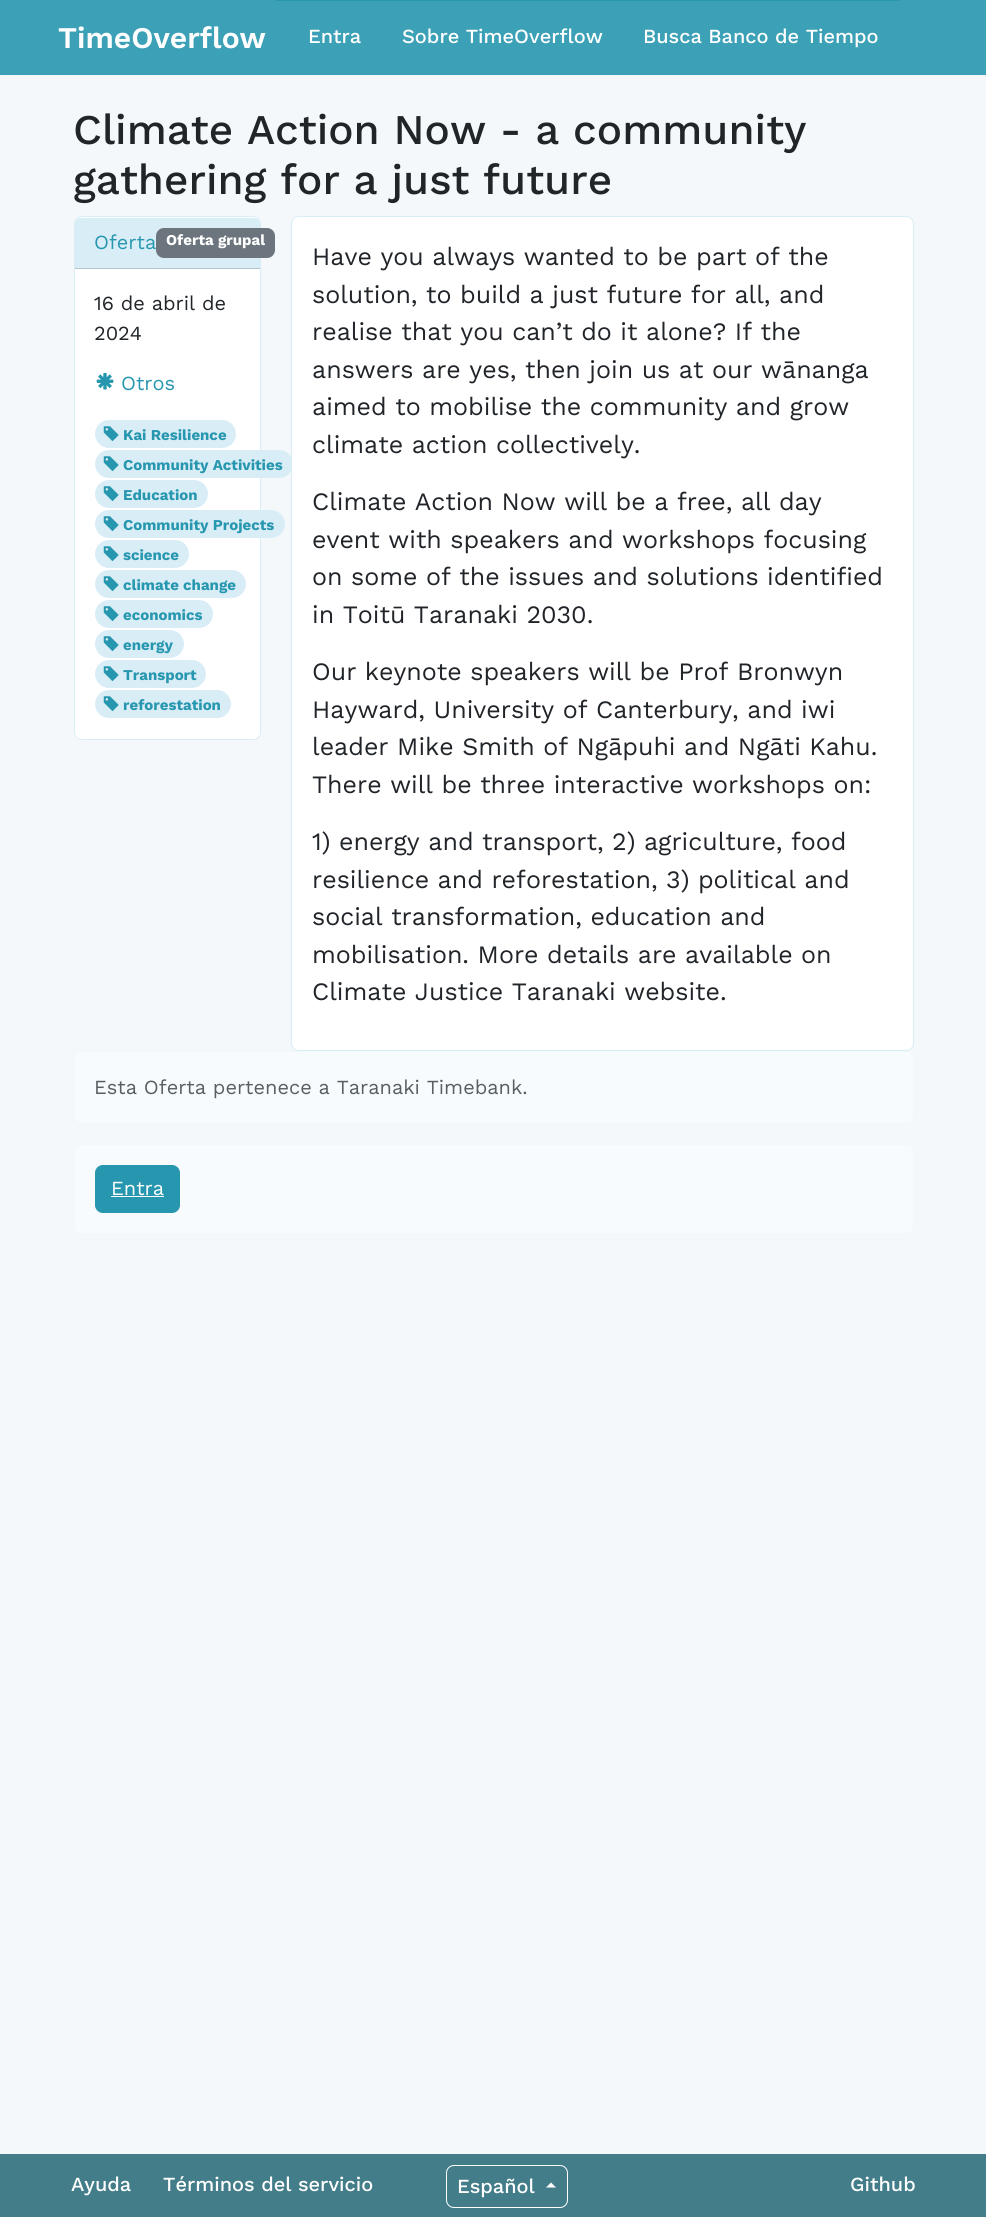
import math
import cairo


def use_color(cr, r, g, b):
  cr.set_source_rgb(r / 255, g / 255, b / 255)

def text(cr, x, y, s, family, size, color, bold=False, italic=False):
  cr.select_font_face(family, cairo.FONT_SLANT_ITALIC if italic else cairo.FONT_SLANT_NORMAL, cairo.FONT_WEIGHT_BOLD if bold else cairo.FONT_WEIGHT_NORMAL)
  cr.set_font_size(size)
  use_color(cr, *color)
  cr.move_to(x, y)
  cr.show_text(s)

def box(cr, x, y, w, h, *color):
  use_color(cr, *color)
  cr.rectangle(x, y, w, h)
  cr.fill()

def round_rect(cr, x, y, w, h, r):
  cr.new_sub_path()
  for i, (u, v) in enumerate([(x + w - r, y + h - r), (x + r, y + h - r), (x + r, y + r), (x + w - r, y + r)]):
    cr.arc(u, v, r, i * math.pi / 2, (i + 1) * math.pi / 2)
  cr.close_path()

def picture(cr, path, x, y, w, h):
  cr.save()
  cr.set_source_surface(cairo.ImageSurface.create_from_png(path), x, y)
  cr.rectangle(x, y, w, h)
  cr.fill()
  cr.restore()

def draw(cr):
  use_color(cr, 245, 248, 250)
  cr.paint()
  box(cr, 0, 0, 986, 75, 60, 161, 183)
  box(cr, 276, 0, 623, 1, 39, 151, 175)
  use_color(cr, 255, 255, 255)
  round_rect(cr, 74.5, 216.5, 186, 523, 7.5)
  cr.fill_preserve()
  use_color(cr, 217, 237, 247)
  cr.set_line_width(1)
  cr.stroke()
  cr.new_path()
  cr.move_to(81, 218)
  cr.line_to(254, 218)
  cr.curve_to(257.5, 218, 260, 220.5, 260, 224)
  cr.line_to(260, 269)
  cr.line_to(75, 269)
  cr.line_to(75, 224)
  cr.curve_to(75, 220.5, 77.5, 218, 81, 218)
  cr.close_path()
  cr.fill()
  box(cr, 75, 268, 185, 1, 179, 195, 204)
  picture(cr, "img_01.png", 96, 372, 18, 18)
  use_color(cr, 217, 237, 247)
  round_rect(cr, 95, 420, 141, 28, 14)
  cr.fill()
  picture(cr, "img_02.png", 103, 426, 16, 16)
  round_rect(cr, 95, 450, 198, 28, 14)
  cr.fill()
  picture(cr, "img_02.png", 103, 456, 16, 16)
  round_rect(cr, 95, 480, 113, 28, 14)
  cr.fill()
  picture(cr, "img_02.png", 103, 486, 16, 16)
  round_rect(cr, 95, 510, 190, 28, 14)
  cr.fill()
  picture(cr, "img_02.png", 103, 516, 16, 16)
  round_rect(cr, 95, 540, 94, 28, 14)
  cr.fill()
  picture(cr, "img_02.png", 103, 546, 16, 16)
  round_rect(cr, 95, 570, 151, 28, 14)
  cr.fill()
  picture(cr, "img_02.png", 103, 576, 16, 16)
  round_rect(cr, 95, 600, 118, 28, 14)
  cr.fill()
  picture(cr, "img_02.png", 103, 606, 16, 16)
  round_rect(cr, 95, 630, 89, 28, 14)
  cr.fill()
  picture(cr, "img_02.png", 103, 636, 16, 16)
  round_rect(cr, 95, 660, 111, 28, 14)
  cr.fill()
  picture(cr, "img_02.png", 103, 666, 16, 16)
  round_rect(cr, 95, 690, 136, 28, 14)
  cr.fill()
  picture(cr, "img_02.png", 103, 696, 16, 16)
  use_color(cr, 255, 255, 255)
  round_rect(cr, 291.5, 216.5, 622, 834, 7.5)
  cr.fill_preserve()
  use_color(cr, 217, 237, 247)
  cr.stroke()
  use_color(cr, 247, 251, 253)
  round_rect(cr, 74.5, 1051.5, 839, 72, 7.5)
  cr.fill_preserve()
  use_color(cr, 240, 248, 252)
  cr.stroke()
  use_color(cr, 247, 251, 253)
  round_rect(cr, 74.5, 1144.5, 839, 89, 7.5)
  cr.fill_preserve()
  use_color(cr, 240, 248, 252)
  cr.stroke()
  use_color(cr, 39, 151, 175)
  round_rect(cr, 95.5, 1165.5, 84, 47, 7.5)
  cr.fill_preserve()
  cr.stroke()
  box(cr, 111, 1196, 53, 1, 255, 255, 255)
  box(cr, 0, 2154, 986, 63, 67, 125, 137)
  round_rect(cr, 446.5, 2165.5, 121, 42, 7.5)
  use_color(cr, 255, 255, 255)
  cr.stroke()
  cr.new_path()
  cr.move_to(556, 2187.5)
  cr.line_to(546, 2187.5)
  cr.line_to(551, 2182.5)
  cr.close_path()
  cr.fill()
  text(cr, 58, 48, "TimeOverflow", "Work Sans SemiBold", 30, (255, 255, 255))
  text(cr, 308, 43, "Entra", "Work Sans Medium", 20, (255, 255, 255))
  text(cr, 402, 43, "Sobre TimeOverflow", "Work Sans Medium", 20, (255, 255, 255))
  text(cr, 643, 43, "Busca Banco de Tiempo", "Work Sans Medium", 20, (255, 255, 255))
  text(cr, 73, 144, "Climate Action Now - a community", "Work Sans Medium", 42.25, (33, 37, 41))
  text(cr, 73, 194, "gathering for a just future", "Work Sans Medium", 42.25, (33, 37, 41))
  text(cr, 94, 249, "Oferta", "Work Sans", 20, (39, 151, 175))
  use_color(cr, 108, 117, 125)
  round_rect(cr, 156, 228, 119, 30, 8)
  cr.fill()
  text(cr, 166, 245, "Oferta grupal", "Work Sans", 15, (255, 255, 255), bold=True)
  text(cr, 94, 310, "16 de abril de", "Work Sans", 20, (33, 37, 41))
  text(cr, 94, 340, "2024", "Work Sans", 20, (33, 37, 41))
  text(cr, 121, 390, "Otros", "Work Sans", 20, (39, 151, 175))
  text(cr, 123, 440, "Kai Resilience", "Work Sans", 15, (39, 151, 175), bold=True)
  text(cr, 123, 470, "Community Activities", "Work Sans", 15, (39, 151, 175), bold=True)
  text(cr, 123, 500, "Education", "Work Sans", 15, (39, 151, 175), bold=True)
  text(cr, 123, 530, "Community Projects", "Work Sans", 15, (39, 151, 175), bold=True)
  text(cr, 123, 560, "science", "Work Sans", 15, (39, 151, 175), bold=True)
  text(cr, 123, 590, "climate change", "Work Sans", 15, (39, 151, 175), bold=True)
  text(cr, 123, 620, "economics", "Work Sans", 15, (39, 151, 175), bold=True)
  text(cr, 123, 650, "energy", "Work Sans", 15, (39, 151, 175), bold=True)
  text(cr, 123, 680, "Transport", "Work Sans", 15, (39, 151, 175), bold=True)
  text(cr, 123, 710, "reforestation", "Work Sans", 15, (39, 151, 175), bold=True)
  text(cr, 312, 265, "Have you always wanted to be part of the", "Work Sans", 25, (33, 37, 41))
  text(cr, 312, 303, "solution, to build a just future for all, and", "Work Sans", 25, (33, 37, 41))
  text(cr, 312, 340, "realise that you can’t do it alone? If the", "Work Sans", 25, (33, 37, 41))
  text(cr, 312, 378, "answers are yes, then join us at our wānanga", "Work Sans", 25, (33, 37, 41))
  text(cr, 312, 415, "aimed to mobilise the community and grow", "Work Sans", 25, (33, 37, 41))
  text(cr, 312, 453, "climate action collectively.", "Work Sans", 25, (33, 37, 41))
  text(cr, 312, 510, "Climate Action Now will be a free, all day", "Work Sans", 25, (33, 37, 41))
  text(cr, 312, 548, "event with speakers and workshops focusing", "Work Sans", 25, (33, 37, 41))
  text(cr, 312, 585, "on some of the issues and solutions identified", "Work Sans", 25, (33, 37, 41))
  text(cr, 312, 623, "in Toitū Taranaki 2030.", "Work Sans", 25, (33, 37, 41))
  text(cr, 312, 680, "Our keynote speakers will be Prof Bronwyn", "Work Sans", 25, (33, 37, 41))
  text(cr, 312, 718, "Hayward, University of Canterbury, and iwi", "Work Sans", 25, (33, 37, 41))
  text(cr, 312, 755, "leader Mike Smith of Ngāpuhi and Ngāti Kahu.", "Work Sans", 25, (33, 37, 41))
  text(cr, 312, 793, "There will be three interactive workshops on:", "Work Sans", 25, (33, 37, 41))
  text(cr, 312, 850, "1) energy and transport, 2) agriculture, food", "Work Sans", 25, (33, 37, 41))
  text(cr, 312, 888, "resilience and reforestation, 3) political and", "Work Sans", 25, (33, 37, 41))
  text(cr, 312, 925, "social transformation, education and", "Work Sans", 25, (33, 37, 41))
  text(cr, 312, 963, "mobilisation. More details are available on", "Work Sans", 25, (33, 37, 41))
  text(cr, 312, 1000, "Climate Justice Taranaki website.", "Work Sans", 25, (33, 37, 41))
  text(cr, 94, 1094, "Esta Oferta pertenece a Taranaki Timebank.", "Work Sans", 20, (87, 95, 99))
  text(cr, 111, 1195, "Entra", "Work Sans", 20, (255, 255, 255))
  text(cr, 71, 2191, "Ayuda", "Work Sans Medium", 20, (255, 255, 255))
  text(cr, 163, 2191, "Términos del servicio", "Work Sans Medium", 20, (255, 255, 255))
  text(cr, 457, 2193, "Español", "Work Sans Medium", 20, (255, 255, 255))
  text(cr, 850, 2191, "Github", "Work Sans Medium", 20, (255, 255, 255))


surface = cairo.ImageSurface(cairo.FORMAT_RGB24, 986, 2217)
cr = cairo.Context(surface)
options = cairo.FontOptions()
options.set_hint_metrics(cairo.HINT_METRICS_OFF)
options.set_hint_style(cairo.HINT_STYLE_NONE)
cr.set_font_options(options)
cr.set_miter_limit(4)
draw(cr)
surface.write_to_png("out.png")
